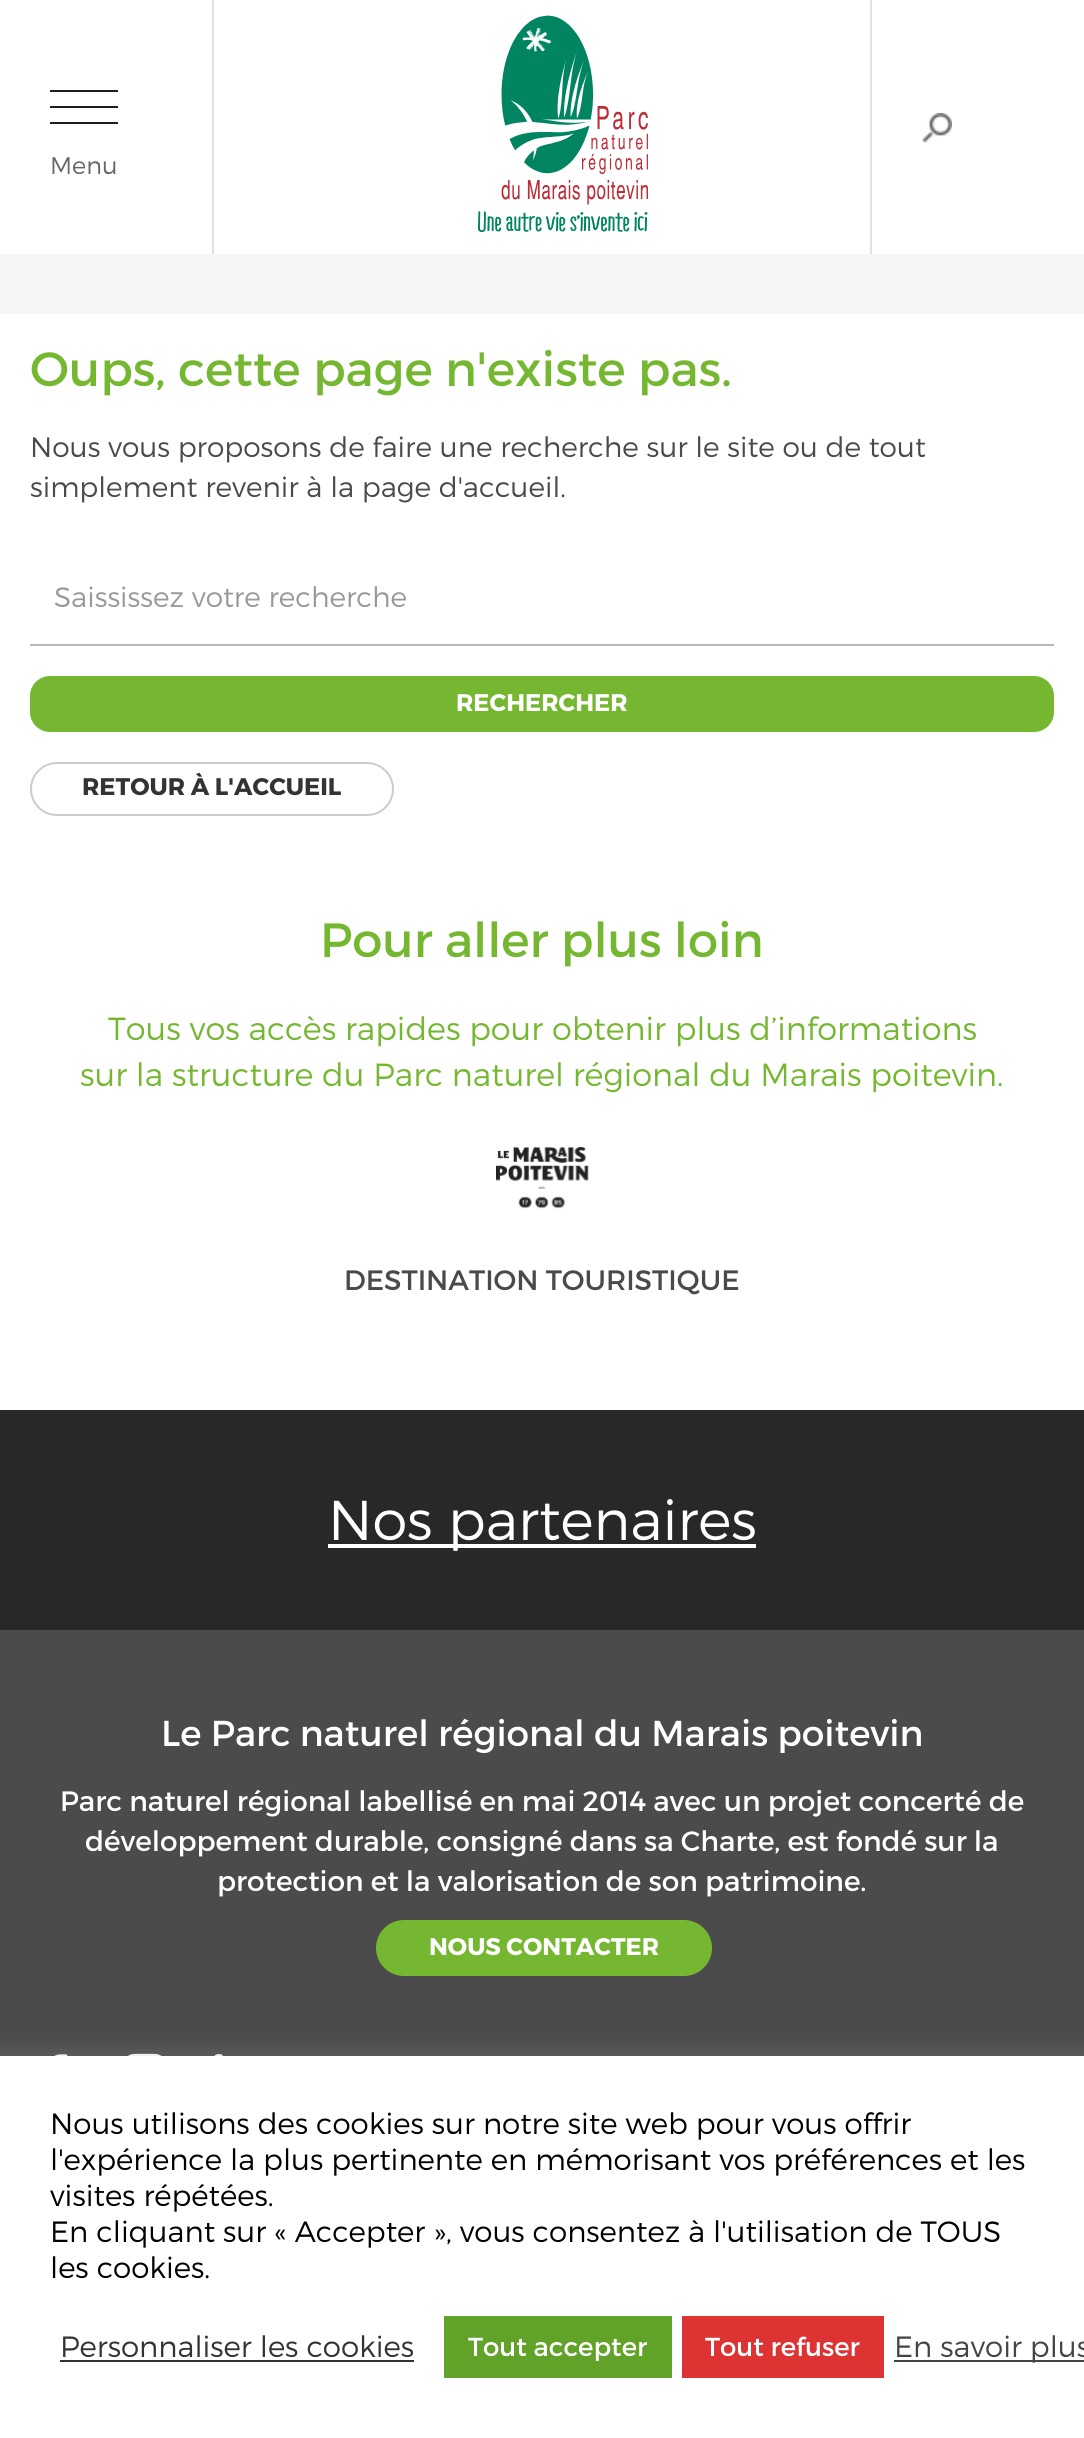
import math
import cairo


def use_color(cr, r, g, b):
  cr.set_source_rgb(r / 255, g / 255, b / 255)

def text(cr, x, y, s, family, size, color, bold=False, italic=False):
  cr.select_font_face(family, cairo.FONT_SLANT_ITALIC if italic else cairo.FONT_SLANT_NORMAL, cairo.FONT_WEIGHT_BOLD if bold else cairo.FONT_WEIGHT_NORMAL)
  cr.set_font_size(size)
  use_color(cr, *color)
  cr.move_to(x, y)
  cr.show_text(s)

def box(cr, x, y, w, h, *color):
  use_color(cr, *color)
  cr.rectangle(x, y, w, h)
  cr.fill()

def round_rect(cr, x, y, w, h, r):
  cr.new_sub_path()
  for i, (u, v) in enumerate([(x + w - r, y + h - r), (x + r, y + h - r), (x + r, y + r), (x + w - r, y + r)]):
    cr.arc(u, v, r, i * math.pi / 2, (i + 1) * math.pi / 2)
  cr.close_path()

def shadow(cr, x, y, w, h, r, blur, alpha):
  cr.push_group_with_content(cairo.CONTENT_ALPHA)
  cr.set_operator(cairo.OPERATOR_SOURCE)
  for i in range(15, -16, -2):
    e = blur * i / 6
    if min(w, h) + 2 * e > 0:
      cr.set_source_rgba(0, 0, 0, alpha * math.erfc((i - 1) / 8.5) / 2)
      round_rect(cr, x - e, y - e, w + 2 * e, h + 2 * e, max(0, min(r + e + blur * .6, min(w, h) / 2 + e)))
      cr.fill()
  cr.mask(cr.pop_group())

def picture(cr, path, x, y, w, h):
  cr.save()
  cr.set_source_surface(cairo.ImageSurface.create_from_png(path), x, y)
  cr.rectangle(x, y, w, h)
  cr.fill()
  cr.restore()

def draw(cr):
  use_color(cr, 255, 255, 255)
  cr.paint()
  box(cr, 212, 0, 2, 254, 226, 226, 226)
  box(cr, 50, 90, 68, 2, 29, 29, 29)
  box(cr, 50, 106, 68, 2, 29, 29, 29)
  box(cr, 50, 122, 68, 2, 29, 29, 29)
  picture(cr, "img_01.png", 478, 15, 170, 217)
  box(cr, 870, 0, 2, 254, 226, 226, 226)
  picture(cr, "img_02.png", 922, 113, 30, 30)
  box(cr, 0, 254, 1084, 60, 246, 246, 246)
  box(cr, 30, 644, 1024, 2, 183, 183, 183)
  use_color(cr, 117, 183, 48)
  round_rect(cr, 31, 677, 1022, 54, 19)
  cr.fill_preserve()
  cr.stroke()
  round_rect(cr, 31, 763, 362, 52, 26)
  use_color(cr, 204, 204, 204)
  cr.stroke()
  picture(cr, "img_03.png", 496, 1146, 93, 63)
  box(cr, 0, 1410, 1084, 220, 40, 40, 40)
  box(cr, 328, 1544, 428, 4, 255, 255, 255)
  box(cr, 0, 1630, 1084, 426, 75, 75, 75)
  use_color(cr, 117, 183, 48)
  round_rect(cr, 377, 1921, 334, 54, 27)
  cr.fill_preserve()
  cr.stroke()
  picture(cr, "img_04.png", 54, 2054, 14, 2)
  picture(cr, "img_05.png", 128, 2053, 34, 3)
  picture(cr, "img_06.png", 214, 2054, 9, 2)
  use_color(cr, 172, 171, 171)
  shadow(cr, 0, 2054, 1084, 382, 0, 10, 0.3)
  box(cr, 0, 2056, 1084, 382, 255, 255, 255)
  box(cr, 60, 2360, 354, 2, 51, 51, 51)
  box(cr, 444, 2316, 228, 62, 97, 162, 41)
  box(cr, 682, 2316, 202, 62, 221, 51, 51)
  box(cr, 894, 2360, 190, 2, 68, 68, 68)
  text(cr, 50, 174, "Menu", "Montserrat Light", 24, (102, 102, 102))
  text(cr, 30, 386, "Oups, cette page n'existe pas.", "Montserrat", 48, (117, 183, 48))
  text(cr, 30, 457, "Nous vous proposons de faire une recherche sur le site ou de tout", "Montserrat Light", 28, (74, 74, 74))
  text(cr, 30, 497, "simplement revenir à la page d'accueil.", "Montserrat Light", 28, (74, 74, 74))
  text(cr, 54, 607, "Saississez votre recherche", "Montserrat Light", 28, (153, 153, 153))
  text(cr, 456, 711, "RECHERCHER", "Montserrat", 24, (255, 255, 255), bold=True)
  text(cr, 82, 795, "RETOUR À L'ACCUEIL", "Montserrat", 24, (51, 51, 51), bold=True)
  text(cr, 320, 957, "Pour aller plus loin", "Montserrat", 48, (117, 183, 48))
  text(cr, 108, 1040, "Tous vos accès rapides pour obtenir plus d’informations", "Montserrat Light", 32, (117, 183, 48))
  text(cr, 80, 1086, "sur la structure du Parc naturel régional du Marais poitevin.", "Montserrat Light", 32, (117, 183, 48))
  text(cr, 344, 1290, "DESTINATION TOURISTIQUE", "Montserrat", 28, (74, 74, 74))
  text(cr, 328, 1540, "Nos partenaires", "Montserrat Light", 56, (255, 255, 255))
  text(cr, 161, 1746, "Le Parc naturel régional du Marais poitevin", "Montserrat", 36, (255, 255, 255))
  text(cr, 60, 1811, "Parc naturel régional labellisé en mai 2014 avec un projet concerté de", "Montserrat", 28, (255, 255, 255))
  text(cr, 85, 1851, "développement durable, consigné dans sa Charte, est fondé sur la", "Montserrat", 28, (255, 255, 255))
  text(cr, 217, 1891, "protection et la valorisation de son patrimoine.", "Montserrat", 28, (255, 255, 255))
  text(cr, 429, 1955, "NOUS CONTACTER", "Montserrat", 24, (255, 255, 255), bold=True)
  text(cr, 50, 2134, "Nous utilisons des cookies sur notre site web pour vous offrir", "Montserrat Light", 29.3, (0, 0, 0))
  text(cr, 50, 2170, "l'expérience la plus pertinente en mémorisant vos préférences et les", "Montserrat Light", 29.3, (0, 0, 0))
  text(cr, 50, 2206, "visites répétées.", "Montserrat Light", 29.3, (0, 0, 0))
  text(cr, 50, 2242, "En cliquant sur « Accepter », vous consentez à l'utilisation de TOUS", "Montserrat Light", 29.3, (0, 0, 0))
  text(cr, 50, 2278, "les cookies.", "Montserrat Light", 29.3, (0, 0, 0))
  text(cr, 60, 2357, "Personnaliser les cookies", "Montserrat Light", 29.3, (51, 51, 51))
  text(cr, 468, 2356, "Tout accepter", "Montserrat", 26, (255, 255, 255))
  text(cr, 705, 2356, "Tout refuser", "Montserrat", 26, (255, 255, 255))
  text(cr, 894, 2357, "En savoir plus", "Montserrat Light", 29.3, (68, 68, 68))


surface = cairo.ImageSurface(cairo.FORMAT_RGB24, 1084, 2438)
cr = cairo.Context(surface)
options = cairo.FontOptions()
options.set_hint_metrics(cairo.HINT_METRICS_OFF)
options.set_hint_style(cairo.HINT_STYLE_NONE)
cr.set_font_options(options)
cr.set_miter_limit(4)
draw(cr)
surface.write_to_png("out.png")
